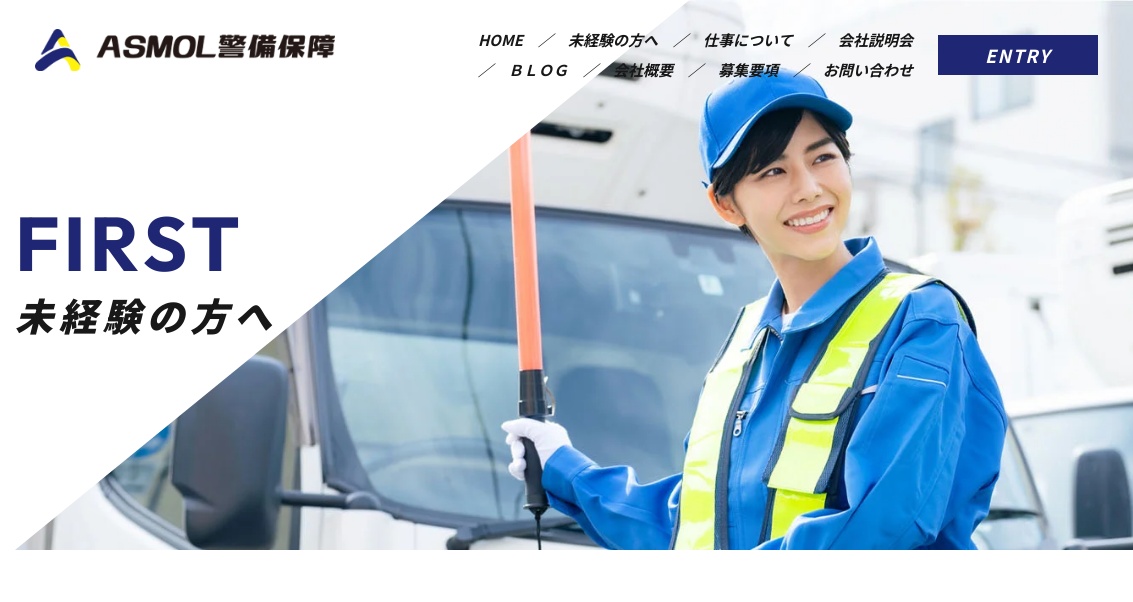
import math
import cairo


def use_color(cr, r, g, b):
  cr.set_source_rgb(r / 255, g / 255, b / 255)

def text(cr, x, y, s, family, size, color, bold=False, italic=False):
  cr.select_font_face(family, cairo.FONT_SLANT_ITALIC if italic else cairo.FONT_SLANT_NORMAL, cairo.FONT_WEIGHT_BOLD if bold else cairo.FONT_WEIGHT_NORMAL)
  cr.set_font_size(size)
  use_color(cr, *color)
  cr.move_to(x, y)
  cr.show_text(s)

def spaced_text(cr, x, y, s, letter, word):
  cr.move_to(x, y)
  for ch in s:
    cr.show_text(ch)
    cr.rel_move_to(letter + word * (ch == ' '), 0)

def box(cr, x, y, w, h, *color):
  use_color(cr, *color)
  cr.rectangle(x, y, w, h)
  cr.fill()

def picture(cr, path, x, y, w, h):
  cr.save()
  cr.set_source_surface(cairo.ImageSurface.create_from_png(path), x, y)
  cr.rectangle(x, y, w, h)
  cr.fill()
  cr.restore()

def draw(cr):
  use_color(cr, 255, 255, 255)
  cr.paint()
  picture(cr, "img_02.png", 15, 0, 1118, 550)
  picture(cr, "img_01.png", 35, 29, 300, 42)
  box(cr, 938, 35, 160, 40, 31, 39, 116)
  text(cr, 478, 46, "HOME", "Noto Sans JP", 15, (24, 24, 24), bold=True, italic=True)
  text(cr, 538, 46, "／", "Noto Sans JP", 15, (24, 24, 24), bold=True, italic=True)
  text(cr, 568, 46, "未経験の方へ", "Noto Sans JP", 15, (24, 24, 24), bold=True, italic=True)
  text(cr, 673, 46, "／", "Noto Sans JP", 15, (24, 24, 24), bold=True, italic=True)
  text(cr, 703, 46, "仕事について", "Noto Sans JP", 15, (24, 24, 24), bold=True, italic=True)
  text(cr, 808, 46, "／", "Noto Sans JP", 15, (24, 24, 24), bold=True, italic=True)
  text(cr, 838, 46, "会社説明会", "Noto Sans JP", 15, (24, 24, 24), bold=True, italic=True)
  text(cr, 478, 76, "／", "Noto Sans JP", 15, (24, 24, 24), bold=True, italic=True)
  text(cr, 508, 76, "ＢＬＯＧ", "Noto Sans JP", 15, (24, 24, 24), bold=True, italic=True)
  text(cr, 583, 76, "／", "Noto Sans JP", 15, (24, 24, 24), bold=True, italic=True)
  text(cr, 613, 76, "会社概要", "Noto Sans JP", 15, (24, 24, 24), bold=True, italic=True)
  text(cr, 688, 76, "／", "Noto Sans JP", 15, (24, 24, 24), bold=True, italic=True)
  text(cr, 718, 76, "募集要項", "Noto Sans JP", 15, (24, 24, 24), bold=True, italic=True)
  text(cr, 793, 76, "／", "Noto Sans JP", 15, (24, 24, 24), bold=True, italic=True)
  text(cr, 823, 76, "お問い合わせ", "Noto Sans JP", 15, (24, 24, 24), bold=True, italic=True)
  cr.set_font_size(18)
  use_color(cr, 255, 255, 255)
  spaced_text(cr, 985, 63, "ENTRY", 1.5, 0)
  cr.select_font_face("Outfit", cairo.FONT_SLANT_NORMAL, cairo.FONT_WEIGHT_BOLD)
  cr.set_font_size(76)
  use_color(cr, 31, 39, 116)
  spaced_text(cr, 15, 271, "FIRST", 3.75, 0)
  cr.select_font_face("Noto Sans JP Black", cairo.FONT_SLANT_ITALIC)
  cr.set_font_size(38)
  use_color(cr, 24, 24, 24)
  spaced_text(cr, 15, 331, "未経験の方へ", 5.75, 0)


surface = cairo.ImageSurface(cairo.FORMAT_RGB24, 1133, 602)
cr = cairo.Context(surface)
options = cairo.FontOptions()
options.set_hint_metrics(cairo.HINT_METRICS_OFF)
options.set_hint_style(cairo.HINT_STYLE_NONE)
cr.set_font_options(options)
cr.set_miter_limit(4)
draw(cr)
surface.write_to_png("out.png")
